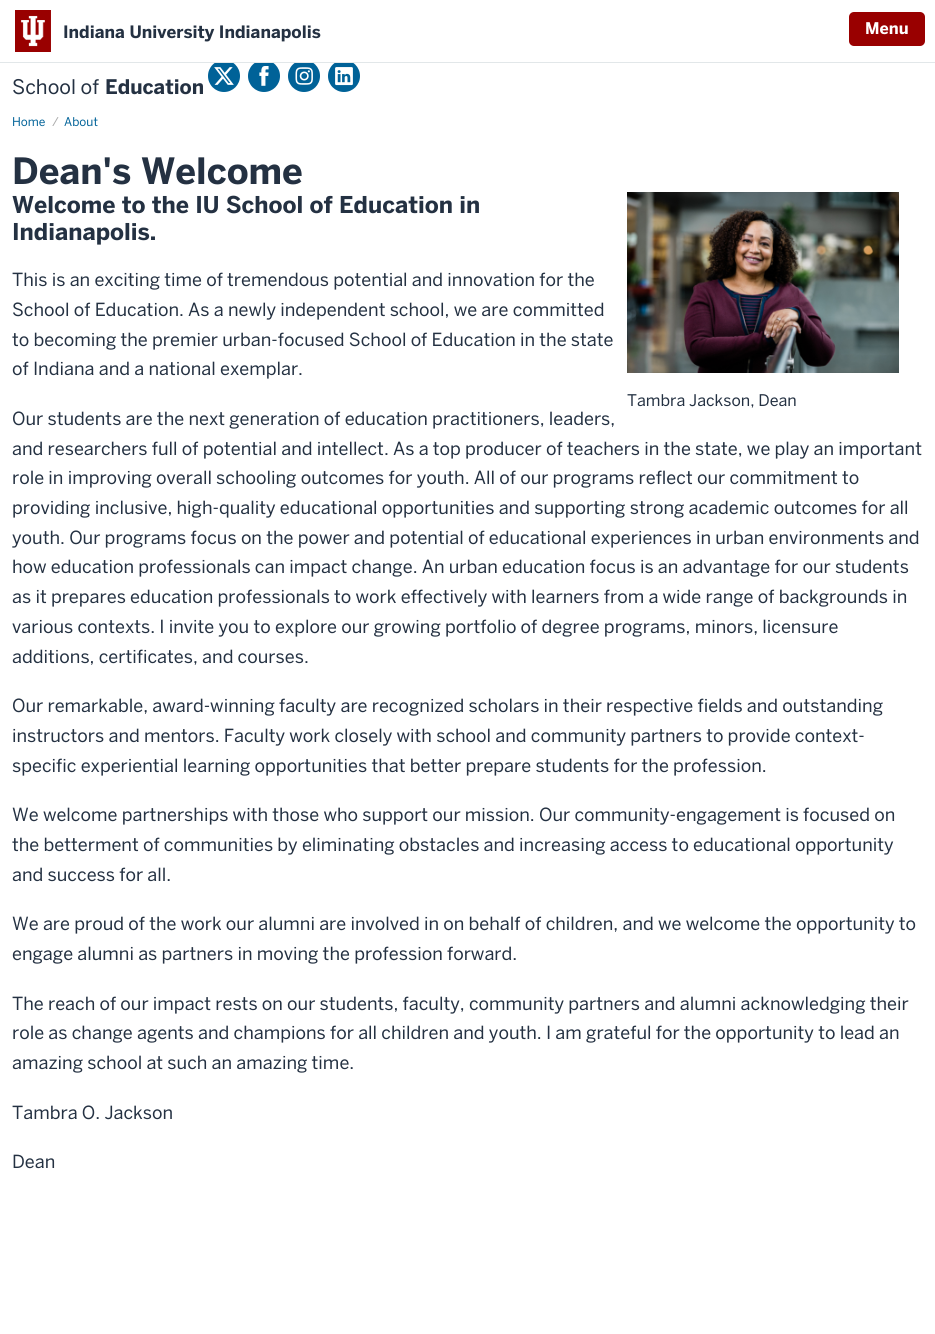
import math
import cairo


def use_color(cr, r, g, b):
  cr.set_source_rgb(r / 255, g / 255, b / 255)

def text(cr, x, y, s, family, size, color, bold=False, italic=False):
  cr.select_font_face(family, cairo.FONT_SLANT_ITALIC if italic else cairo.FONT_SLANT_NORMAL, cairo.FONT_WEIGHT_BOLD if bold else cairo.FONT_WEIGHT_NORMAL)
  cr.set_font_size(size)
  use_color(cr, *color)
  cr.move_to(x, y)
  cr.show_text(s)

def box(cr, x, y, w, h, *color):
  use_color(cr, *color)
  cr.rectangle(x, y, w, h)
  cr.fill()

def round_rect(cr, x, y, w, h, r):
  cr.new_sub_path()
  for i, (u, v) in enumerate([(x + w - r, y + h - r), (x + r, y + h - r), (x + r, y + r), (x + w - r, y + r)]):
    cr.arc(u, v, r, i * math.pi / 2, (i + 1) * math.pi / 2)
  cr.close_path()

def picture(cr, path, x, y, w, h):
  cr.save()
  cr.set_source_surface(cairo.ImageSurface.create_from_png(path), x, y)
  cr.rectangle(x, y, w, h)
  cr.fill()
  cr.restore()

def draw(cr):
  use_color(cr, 255, 255, 255)
  cr.paint()
  box(cr, 0, 62, 935, 1, 226, 231, 233)
  picture(cr, "img_01.png", 15, 10, 36, 42)
  use_color(cr, 153, 0, 0)
  round_rect(cr, 849, 12, 76, 34, 5)
  cr.fill()
  picture(cr, "img_02.png", 208, 63, 32, 29)
  picture(cr, "img_03.png", 248, 63, 32, 29)
  picture(cr, "img_04.png", 288, 63, 32, 29)
  picture(cr, "img_05.png", 328, 63, 32, 29)
  picture(cr, "img_06.png", 627, 192, 272, 181)
  text(cr, 63, 38, "Indiana University Indianapolis", "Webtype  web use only", 17, (36, 49, 66), bold=True)
  text(cr, 865, 34, "Menu", "Webtype  web use only", 16, (255, 255, 255), bold=True)
  text(cr, 12, 94, "School of", "Webtype  web use only", 20, (36, 49, 66))
  text(cr, 105, 94, "Education", "Webtype  web use only", 20, (36, 49, 66), bold=True)
  text(cr, 12, 126, "Home", "Webtype  web use only", 12, (0, 98, 152))
  text(cr, 52, 126, "/", "Webtype  web use only", 12, (170, 170, 170))
  text(cr, 64, 126, "About", "Webtype  web use only", 12, (0, 98, 152))
  text(cr, 12, 184, "Dean's Welcome", "Webtype  web use only", 36, (36, 49, 66), bold=True)
  text(cr, 12, 213, "Welcome to the IU School of Education in", "Webtype  web use only", 23, (36, 49, 66), bold=True)
  text(cr, 12, 240, "Indianapolis.", "Webtype  web use only", 23, (36, 49, 66), bold=True)
  text(cr, 12, 286, "This is an exciting time of tremendous potential and innovation for the", "Webtype  web use only", 18, (36, 49, 66))
  text(cr, 12, 316, "School of Education. As a newly independent school, we are committed", "Webtype  web use only", 18, (36, 49, 66))
  text(cr, 12, 346, "to becoming the premier urban-focused School of Education in the state", "Webtype  web use only", 18, (36, 49, 66))
  text(cr, 12, 375, "of Indiana and a national exemplar.", "Webtype  web use only", 18, (36, 49, 66))
  text(cr, 12, 425, "Our students are the next generation of education practitioners, leaders,", "Webtype  web use only", 18, (36, 49, 66))
  text(cr, 12, 455, "and researchers full of potential and intellect. As a top producer of teachers in the state, we play an important", "Webtype  web use only", 18, (36, 49, 66))
  text(cr, 12, 484, "role in improving overall schooling outcomes for youth. All of our programs reflect our commitment to", "Webtype  web use only", 18, (36, 49, 66))
  text(cr, 12, 514, "providing inclusive, high-quality educational opportunities and supporting strong academic outcomes for all", "Webtype  web use only", 18, (36, 49, 66))
  text(cr, 12, 544, "youth. Our programs focus on the power and potential of educational experiences in urban environments and", "Webtype  web use only", 18, (36, 49, 66))
  text(cr, 12, 573, "how education professionals can impact change. An urban education focus is an advantage for our students", "Webtype  web use only", 18, (36, 49, 66))
  text(cr, 12, 603, "as it prepares education professionals to work effectively with learners from a wide range of backgrounds in", "Webtype  web use only", 18, (36, 49, 66))
  text(cr, 12, 633, "various contexts. I invite you to explore our growing portfolio of degree programs, minors, licensure", "Webtype  web use only", 18, (36, 49, 66))
  text(cr, 12, 663, "additions, certificates, and courses.", "Webtype  web use only", 18, (36, 49, 66))
  text(cr, 12, 712, "Our remarkable, award-winning faculty are recognized scholars in their respective fields and outstanding", "Webtype  web use only", 18, (36, 49, 66))
  text(cr, 12, 742, "instructors and mentors. Faculty work closely with school and community partners to provide context-", "Webtype  web use only", 18, (36, 49, 66))
  text(cr, 12, 772, "specific experiential learning opportunities that better prepare students for the profession.", "Webtype  web use only", 18, (36, 49, 66))
  text(cr, 12, 821, "We welcome partnerships with those who support our mission. Our community-engagement is focused on", "Webtype  web use only", 18, (36, 49, 66))
  text(cr, 12, 851, "the betterment of communities by eliminating obstacles and increasing access to educational opportunity", "Webtype  web use only", 18, (36, 49, 66))
  text(cr, 12, 881, "and success for all.", "Webtype  web use only", 18, (36, 49, 66))
  text(cr, 12, 930, "We are proud of the work our alumni are involved in on behalf of children, and we welcome the opportunity to", "Webtype  web use only", 18, (36, 49, 66))
  text(cr, 12, 960, "engage alumni as partners in moving the profession forward.", "Webtype  web use only", 18, (36, 49, 66))
  text(cr, 12, 1010, "The reach of our impact rests on our students, faculty, community partners and alumni acknowledging their", "Webtype  web use only", 18, (36, 49, 66))
  text(cr, 12, 1039, "role as change agents and champions for all children and youth. I am grateful for the opportunity to lead an", "Webtype  web use only", 18, (36, 49, 66))
  text(cr, 12, 1069, "amazing school at such an amazing time.", "Webtype  web use only", 18, (36, 49, 66))
  text(cr, 12, 1119, "Tambra O. Jackson", "Webtype  web use only", 18, (36, 49, 66))
  text(cr, 12, 1168, "Dean", "Webtype  web use only", 18, (36, 49, 66))
  text(cr, 627, 406, "Tambra Jackson, Dean", "Webtype  web use only", 16, (36, 49, 66))


surface = cairo.ImageSurface(cairo.FORMAT_RGB24, 935, 1334)
cr = cairo.Context(surface)
options = cairo.FontOptions()
options.set_hint_metrics(cairo.HINT_METRICS_OFF)
options.set_hint_style(cairo.HINT_STYLE_NONE)
cr.set_font_options(options)
cr.set_miter_limit(4)
draw(cr)
surface.write_to_png("out.png")
